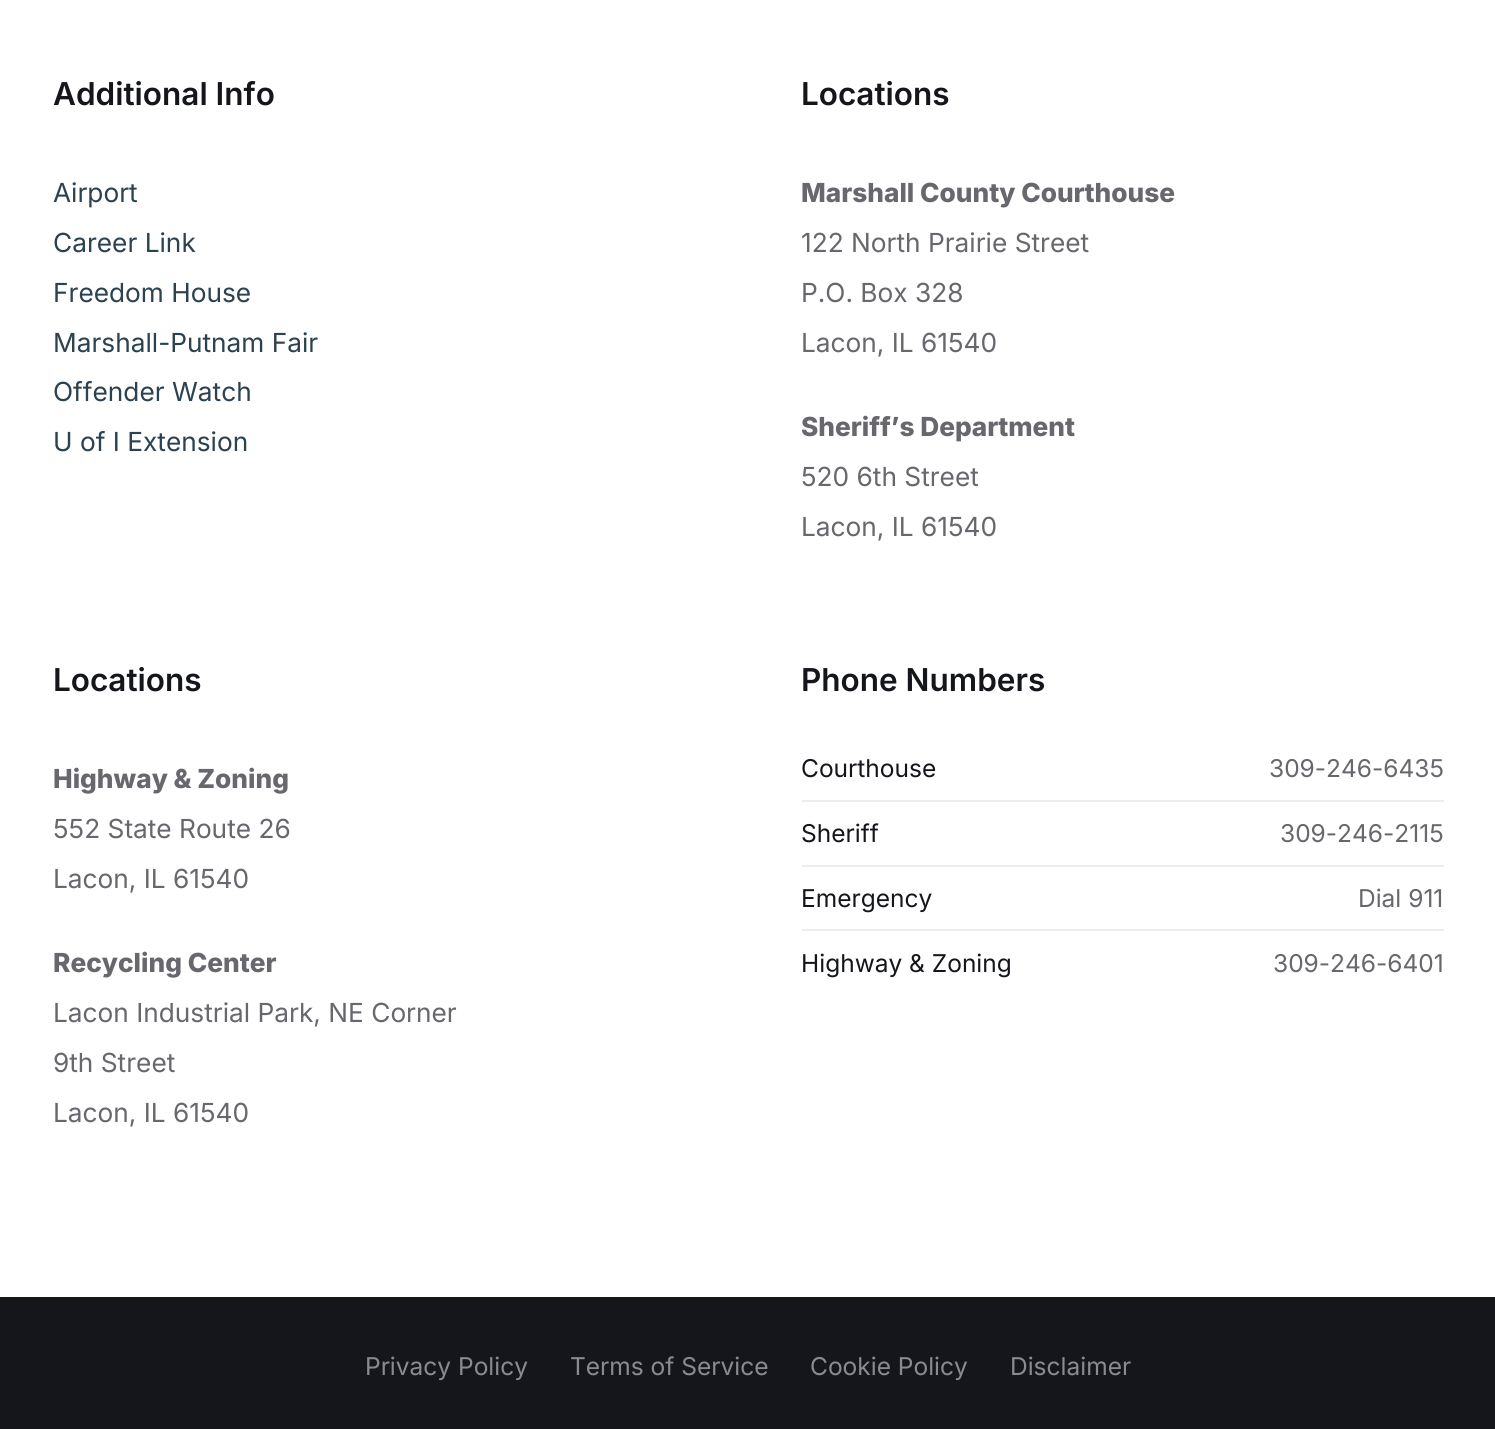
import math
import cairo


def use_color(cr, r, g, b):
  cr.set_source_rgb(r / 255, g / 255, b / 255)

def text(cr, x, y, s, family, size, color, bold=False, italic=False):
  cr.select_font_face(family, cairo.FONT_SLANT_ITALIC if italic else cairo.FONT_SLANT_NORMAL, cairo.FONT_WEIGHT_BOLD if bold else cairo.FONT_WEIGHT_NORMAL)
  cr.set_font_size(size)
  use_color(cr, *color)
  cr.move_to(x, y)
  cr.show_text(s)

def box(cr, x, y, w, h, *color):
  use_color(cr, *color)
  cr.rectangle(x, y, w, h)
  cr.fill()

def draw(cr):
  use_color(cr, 255, 255, 255)
  cr.paint()
  box(cr, 802, 800, 642, 2, 237, 237, 237)
  box(cr, 802, 865, 642, 2, 237, 237, 237)
  box(cr, 802, 929, 642, 2, 237, 237, 237)
  box(cr, 0, 1297, 1495, 132, 20, 22, 28)
  text(cr, 53, 105, "Additional Info", "Inter SemiBold", 31.5, (20, 22, 28))
  text(cr, 53, 202, "Airport", "Inter", 26.25, (44, 66, 81))
  text(cr, 53, 252, "Career Link", "Inter", 26.25, (44, 66, 81))
  text(cr, 53, 302, "Freedom House", "Inter", 26.25, (44, 66, 81))
  text(cr, 53, 352, "Marshall-Putnam Fair", "Inter", 26.25, (44, 66, 81))
  text(cr, 53, 401, "Offender Watch", "Inter", 26.25, (44, 66, 81))
  text(cr, 53, 451, "U of I Extension", "Inter", 26.25, (44, 66, 81))
  text(cr, 801, 105, "Locations", "Inter SemiBold", 31.5, (20, 22, 28))
  text(cr, 801, 202, "Marshall County Courthouse", "Inter ExtraBold", 26.25, (104, 103, 109))
  text(cr, 801, 252, "122 North Prairie Street", "Inter", 26.25, (104, 103, 109))
  text(cr, 801, 302, "P.O. Box 328", "Inter", 26.25, (104, 103, 109))
  text(cr, 801, 352, "Lacon, IL 61540", "Inter", 26.25, (104, 103, 109))
  text(cr, 801, 436, "Sheriff’s Department", "Inter ExtraBold", 26.25, (104, 103, 109))
  text(cr, 801, 486, "520 6th Street", "Inter", 26.25, (104, 103, 109))
  text(cr, 801, 536, "Lacon, IL 61540", "Inter", 26.25, (104, 103, 109))
  text(cr, 53, 691, "Locations", "Inter SemiBold", 31.5, (20, 22, 28))
  text(cr, 53, 788, "Highway & Zoning", "Inter ExtraBold", 26.25, (104, 103, 109))
  text(cr, 53, 838, "552 State Route 26", "Inter", 26.25, (104, 103, 109))
  text(cr, 53, 888, "Lacon, IL 61540", "Inter", 26.25, (104, 103, 109))
  text(cr, 53, 972, "Recycling Center", "Inter ExtraBold", 26.25, (104, 103, 109))
  text(cr, 53, 1022, "Lacon Industrial Park, NE Corner", "Inter", 26.25, (104, 103, 109))
  text(cr, 53, 1072, "9th Street", "Inter", 26.25, (104, 103, 109))
  text(cr, 53, 1122, "Lacon, IL 61540", "Inter", 26.25, (104, 103, 109))
  text(cr, 801, 691, "Phone Numbers", "Inter SemiBold", 31.5, (20, 22, 28))
  text(cr, 801, 777, "Courthouse", "Inter", 24.5, (20, 22, 28))
  text(cr, 1269, 777, "309-246-6435", "Inter", 24.5, (104, 103, 109))
  text(cr, 801, 842, "Sheriff", "Inter", 24.5, (20, 22, 28))
  text(cr, 1280, 842, "309-246-2115", "Inter", 24.5, (104, 103, 109))
  text(cr, 801, 907, "Emergency", "Inter", 24.5, (20, 22, 28))
  text(cr, 1358, 907, "Dial 911", "Inter", 24.5, (104, 103, 109))
  text(cr, 801, 972, "Highway & Zoning", "Inter", 24.5, (20, 22, 28))
  text(cr, 1273, 972, "309-246-6401", "Inter", 24.5, (104, 103, 109))
  text(cr, 365, 1375, "Privacy Policy", "Inter", 24.5, (138, 139, 142))
  text(cr, 570, 1375, "Terms of Service", "Inter", 24.5, (138, 139, 142))
  text(cr, 810, 1375, "Cookie Policy", "Inter", 24.5, (138, 139, 142))
  text(cr, 1010, 1375, "Disclaimer", "Inter", 24.5, (138, 139, 142))


surface = cairo.ImageSurface(cairo.FORMAT_RGB24, 1495, 1429)
cr = cairo.Context(surface)
options = cairo.FontOptions()
options.set_hint_metrics(cairo.HINT_METRICS_OFF)
options.set_hint_style(cairo.HINT_STYLE_NONE)
cr.set_font_options(options)
cr.set_miter_limit(4)
draw(cr)
surface.write_to_png("out.png")
